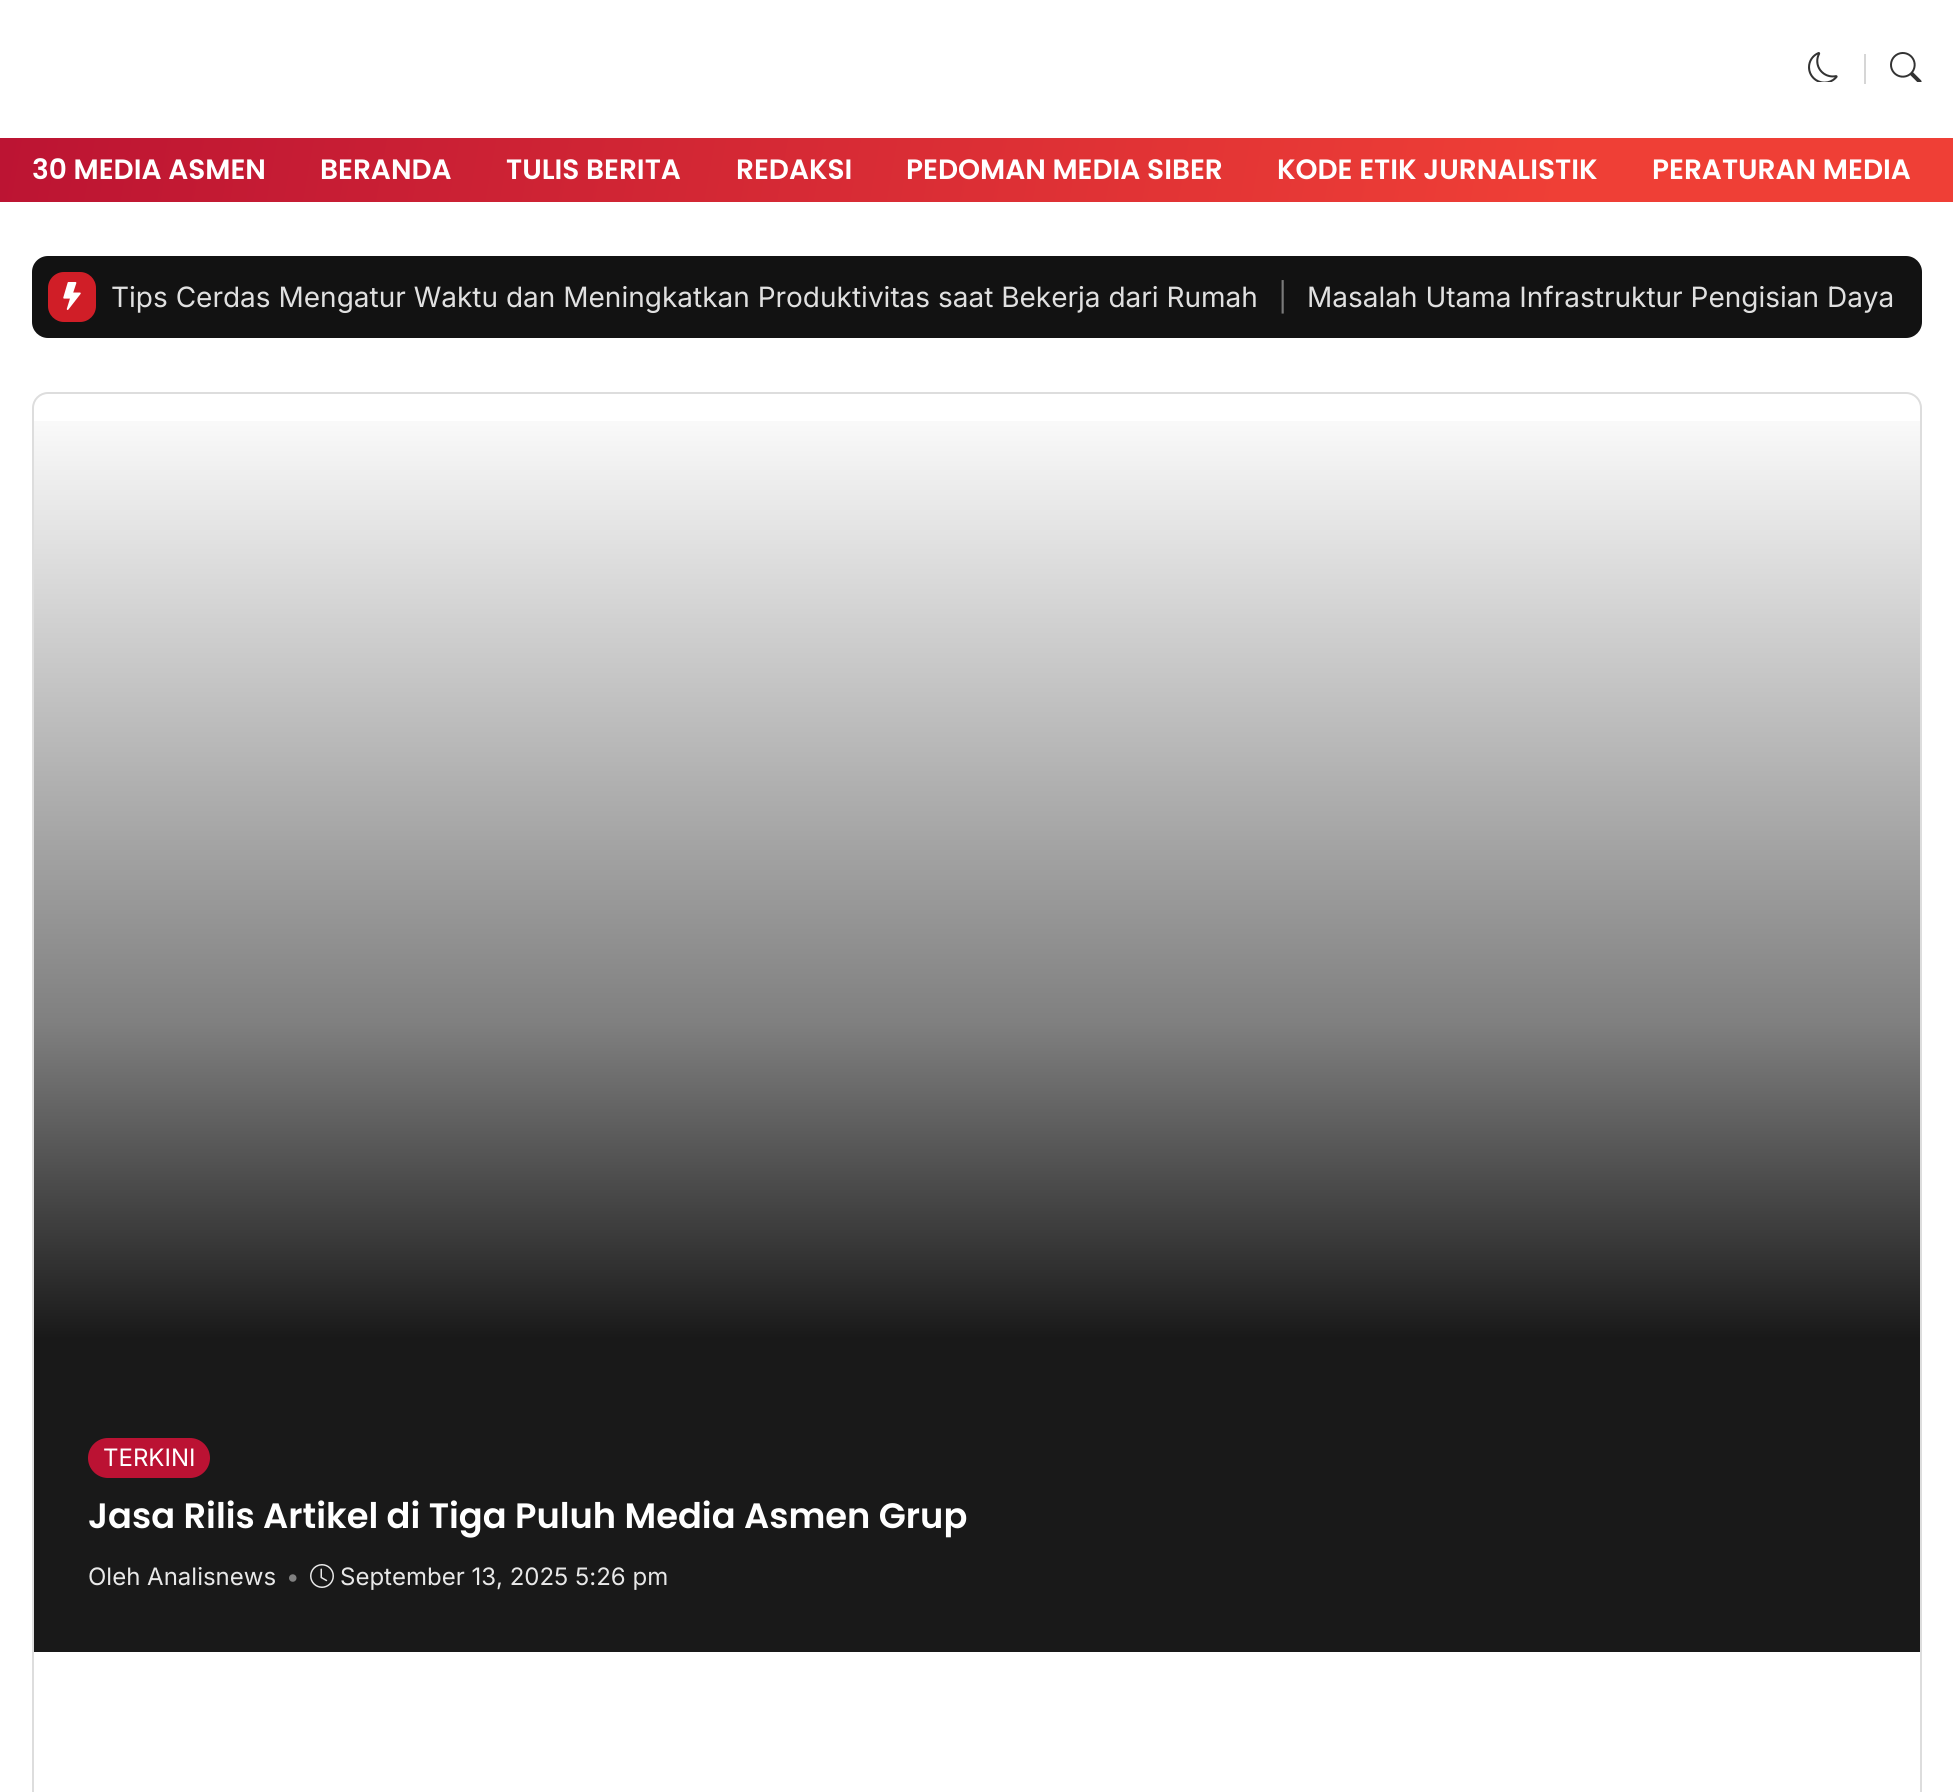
import math
import cairo


def use_color(cr, r, g, b):
  cr.set_source_rgb(r / 255, g / 255, b / 255)

def text(cr, x, y, s, family, size, color, bold=False, italic=False):
  cr.select_font_face(family, cairo.FONT_SLANT_ITALIC if italic else cairo.FONT_SLANT_NORMAL, cairo.FONT_WEIGHT_BOLD if bold else cairo.FONT_WEIGHT_NORMAL)
  cr.set_font_size(size)
  use_color(cr, *color)
  cr.move_to(x, y)
  cr.show_text(s)

def box(cr, x, y, w, h, *color):
  use_color(cr, *color)
  cr.rectangle(x, y, w, h)
  cr.fill()

def round_rect(cr, x, y, w, h, r):
  cr.new_sub_path()
  for i, (u, v) in enumerate([(x + w - r, y + h - r), (x + r, y + h - r), (x + r, y + r), (x + w - r, y + r)]):
    cr.arc(u, v, r, i * math.pi / 2, (i + 1) * math.pi / 2)
  cr.close_path()

def picture(cr, path, x, y, w, h):
  cr.save()
  cr.set_source_surface(cairo.ImageSurface.create_from_png(path), x, y)
  cr.rectangle(x, y, w, h)
  cr.fill()
  cr.restore()

def draw(cr):
  use_color(cr, 255, 255, 255)
  cr.paint()
  picture(cr, "img_01.png", 1808, 52, 30, 30)
  box(cr, 1864, 54, 2, 30, 214, 214, 214)
  picture(cr, "img_02.png", 1890, 52, 32, 30)
  gradient = cairo.LinearGradient(24, 2, 1930, 338)
  gradient.add_color_stop_rgba(0, 0.737, 0.078, 0.2, 1)
  gradient.add_color_stop_rgba(0.8, 0.937, 0.247, 0.212, 1)
  cr.set_source(gradient)
  cr.rectangle(0, 138, 1953, 64)
  cr.fill()
  use_color(cr, 18, 18, 18)
  round_rect(cr, 32, 256, 1890, 82, 16)
  cr.fill()
  use_color(cr, 208, 30, 39)
  round_rect(cr, 48, 272, 48, 50, 16)
  cr.fill()
  picture(cr, "img_03.png", 63, 282, 18, 28)
  round_rect(cr, 33, 393, 1888, 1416, 15)
  use_color(cr, 221, 221, 221)
  cr.stroke()
  gradient = cairo.LinearGradient(977, 394, 977, 1652)
  gradient.add_color_stop_rgba(0, 0, 0, 0, 0)
  gradient.add_color_stop_rgba(0.5, 0, 0, 0, 0.5)
  gradient.add_color_stop_rgba(0.75, 0, 0, 0, 0.9)
  cr.set_source(gradient)
  cr.rectangle(34, 421, 1886, 1231)
  cr.fill()
  use_color(cr, 187, 18, 51)
  round_rect(cr, 88, 1438, 122, 40, 20)
  cr.fill()
  picture(cr, "img_04.png", 310, 1564, 24, 24)
  text(cr, 32, 179, "30 MEDIA ASMEN", "Poppins SemiBold", 28, (255, 255, 255))
  text(cr, 320, 179, "BERANDA", "Poppins SemiBold", 28, (255, 255, 255))
  text(cr, 506, 179, "TULIS BERITA", "Poppins SemiBold", 28, (255, 255, 255))
  text(cr, 736, 179, "REDAKSI", "Poppins SemiBold", 28, (255, 255, 255))
  text(cr, 906, 179, "PEDOMAN MEDIA SIBER", "Poppins SemiBold", 28, (255, 255, 255))
  text(cr, 1277, 179, "KODE ETIK JURNALISTIK", "Poppins SemiBold", 28, (255, 255, 255))
  text(cr, 1652, 179, "PERATURAN MEDIA", "Poppins SemiBold", 28, (255, 255, 255))
  text(cr, 111, 307, "Tips Cerdas Mengatur Waktu dan Meningkatkan Produktivitas saat Bekerja dari Rumah", "Inter", 28, (224, 224, 224))
  text(cr, 1278, 307, "|", "Inter", 28, (122, 122, 122))
  text(cr, 1307, 307, "Masalah Utama Infrastruktur Pengisian Daya", "Inter", 28, (224, 224, 224))
  text(cr, 103, 1466, "TERKINI", "Inter", 24, (255, 255, 255))
  text(cr, 88, 1528, "Jasa Rilis Artikel di Tiga Puluh Media Asmen Grup", "Poppins SemiBold", 35.25, (255, 255, 255))
  text(cr, 88, 1585, "Oleh Analisnews", "Inter", 24, (232, 232, 232))
  text(cr, 286, 1585, "•", "Inter", 24, (129, 129, 129))
  text(cr, 340, 1585, "September 13, 2025 5:26 pm", "Inter", 24, (232, 232, 232))


surface = cairo.ImageSurface(cairo.FORMAT_RGB24, 1953, 1792)
cr = cairo.Context(surface)
options = cairo.FontOptions()
options.set_hint_metrics(cairo.HINT_METRICS_OFF)
options.set_hint_style(cairo.HINT_STYLE_NONE)
cr.set_font_options(options)
cr.set_miter_limit(4)
draw(cr)
surface.write_to_png("out.png")
